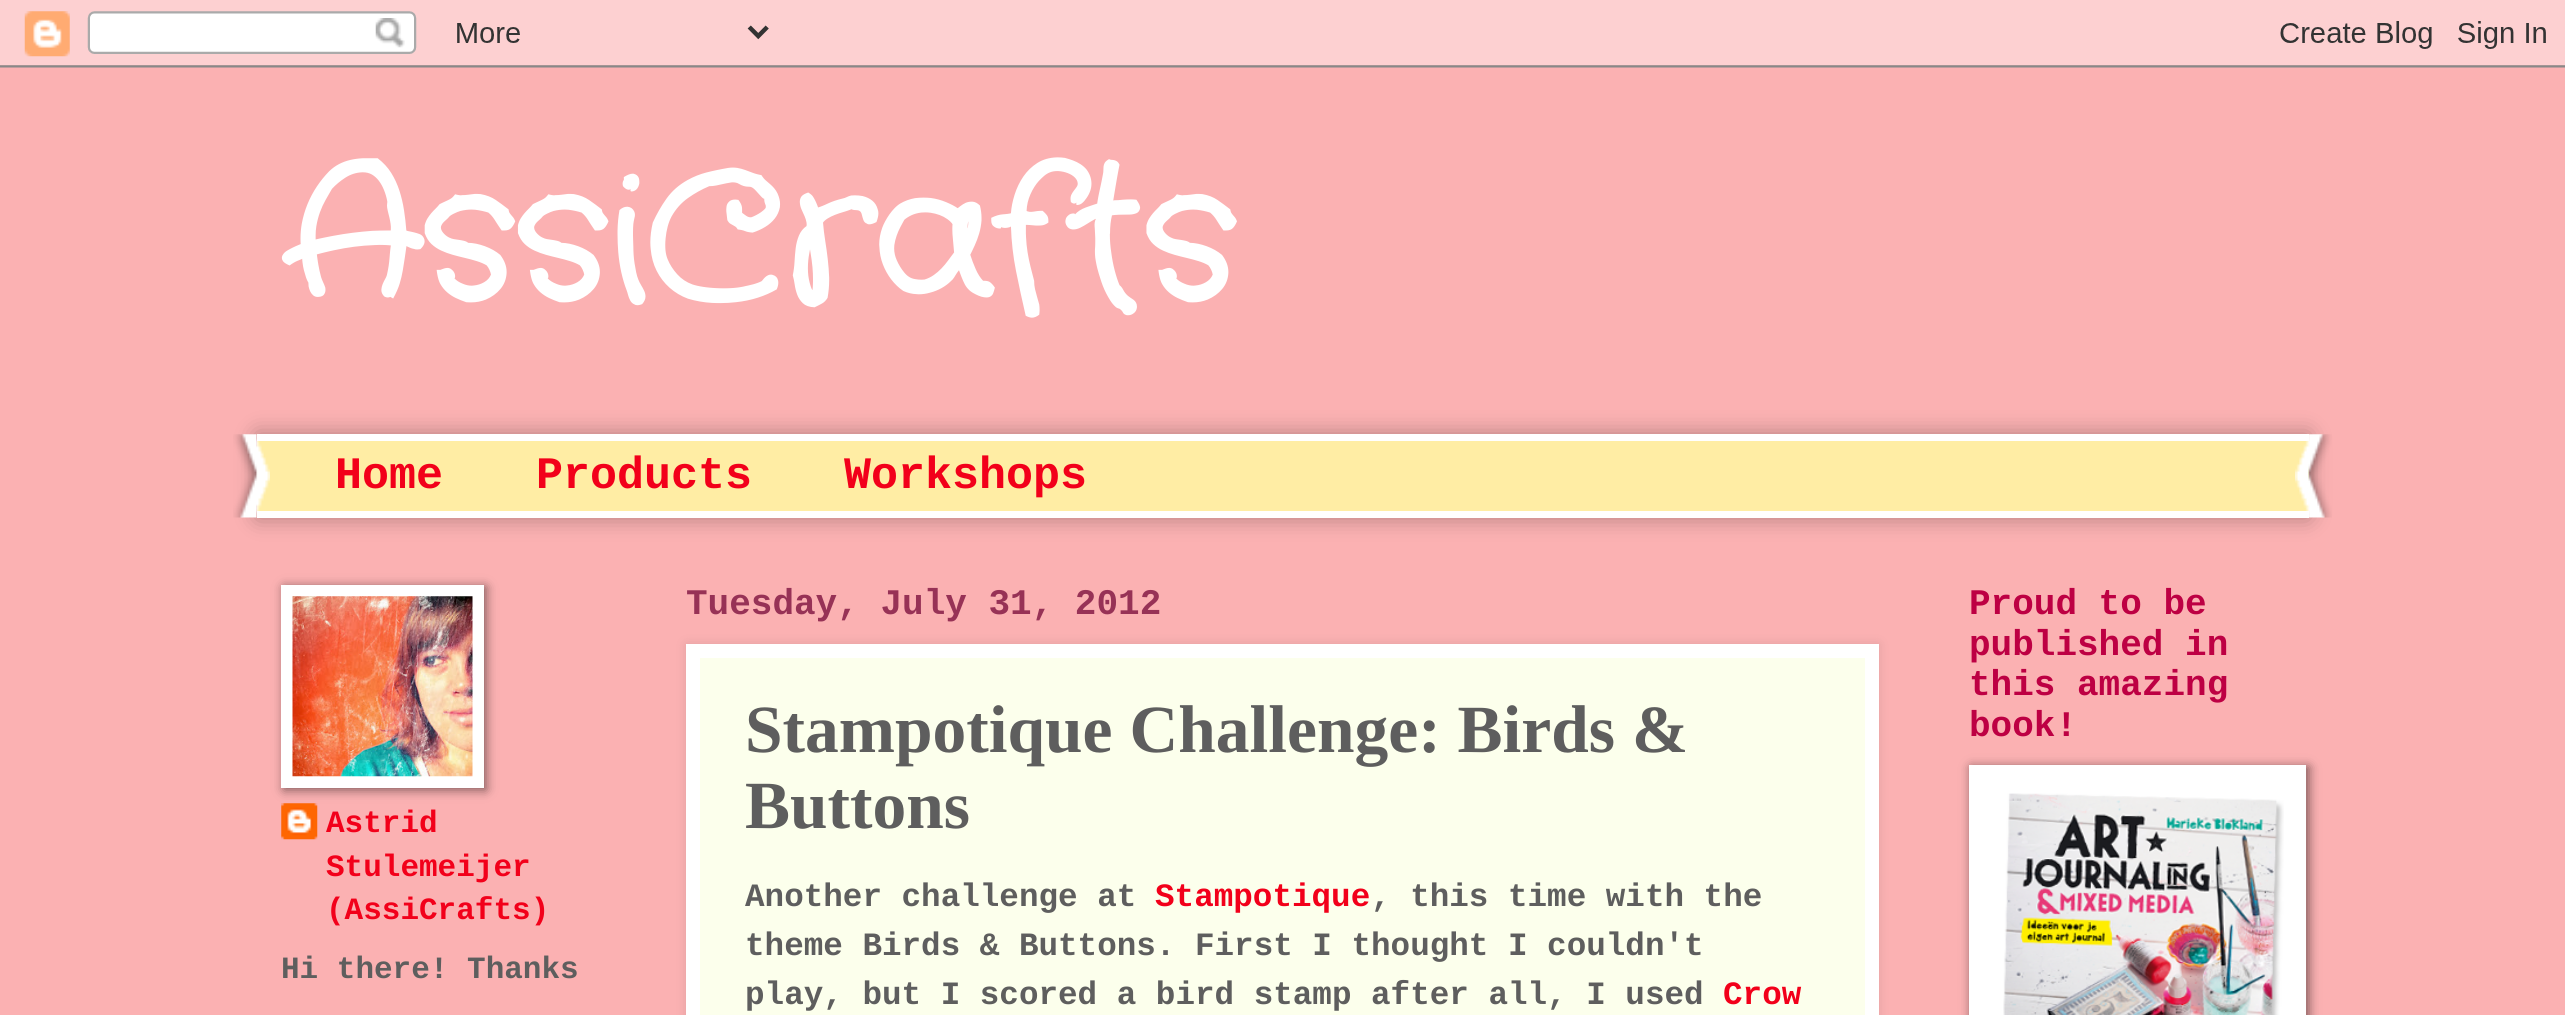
import math
import cairo


def use_color(cr, r, g, b):
  cr.set_source_rgb(r / 255, g / 255, b / 255)

def text(cr, x, y, s, family, size, color, bold=False, italic=False):
  cr.select_font_face(family, cairo.FONT_SLANT_ITALIC if italic else cairo.FONT_SLANT_NORMAL, cairo.FONT_WEIGHT_BOLD if bold else cairo.FONT_WEIGHT_NORMAL)
  cr.set_font_size(size)
  use_color(cr, *color)
  cr.move_to(x, y)
  cr.show_text(s)

def box(cr, x, y, w, h, *color):
  use_color(cr, *color)
  cr.rectangle(x, y, w, h)
  cr.fill()

def round_rect(cr, x, y, w, h, r):
  cr.new_sub_path()
  for i, (u, v) in enumerate([(x + w - r, y + h - r), (x + r, y + h - r), (x + r, y + r), (x + w - r, y + r)]):
    cr.arc(u, v, r, i * math.pi / 2, (i + 1) * math.pi / 2)
  cr.close_path()

def shadow(cr, x, y, w, h, r, blur, alpha):
  cr.push_group_with_content(cairo.CONTENT_ALPHA)
  cr.set_operator(cairo.OPERATOR_SOURCE)
  for i in range(15, -16, -2):
    e = blur * i / 6
    if min(w, h) + 2 * e > 0:
      cr.set_source_rgba(0, 0, 0, alpha * math.erfc((i - 1) / 8.5) / 2)
      round_rect(cr, x - e, y - e, w + 2 * e, h + 2 * e, max(0, min(r + e + blur * .6, min(w, h) / 2 + e)))
      cr.fill()
  cr.mask(cr.pop_group())

def picture(cr, path, x, y, w, h):
  cr.save()
  cr.set_source_surface(cairo.ImageSurface.create_from_png(path), x, y)
  cr.rectangle(x, y, w, h)
  cr.fill()
  cr.restore()

def draw(cr):
  use_color(cr, 251, 177, 178)
  cr.paint()
  picture(cr, "img_01.png", 0, 0, 2565, 68)
  use_color(cr, 0, 0, 0)
  shadow(cr, 257, 434, 2052, 84, 0, 11, 0.3)
  box(cr, 257, 441, 2052, 70, 255, 237, 164)
  box(cr, 257, 434, 2052, 7, 255, 255, 255)
  box(cr, 257, 511, 2052, 7, 255, 255, 255)
  picture(cr, "img_02.png", 2295, 434, 37, 84)
  picture(cr, "img_03.png", 233, 434, 37, 84)
  use_color(cr, 0, 0, 0)
  shadow(cr, 686, 644, 1193, 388, 0, 5.5, 0.1)
  use_color(cr, 252, 255, 236)
  cr.rectangle(693, 651, 1179, 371)
  cr.fill_preserve()
  use_color(cr, 255, 255, 255)
  cr.set_line_width(14)
  cr.stroke()
  use_color(cr, 0, 0, 0)
  shadow(cr, 1971, 767, 338, 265, 0, 5.5, 0.5)
  box(cr, 1969, 765, 337, 250, 255, 255, 255)
  picture(cr, "img_04.png", 2003, 793, 281, 222)
  picture(cr, "img_06.png", 281, 803, 37, 37)
  use_color(cr, 0, 0, 0)
  shadow(cr, 284, 587, 202, 203, 0, 5.5, 0.5)
  box(cr, 281, 585, 203, 203, 255, 255, 255)
  picture(cr, "img_05.png", 292, 596, 181, 181)
  text(cr, 281, 295, "AssiCrafts", "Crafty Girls", 180, (255, 255, 255), bold=True)
  text(cr, 335, 488, "Home", "Liberation Mono", 45, (242, 0, 26), bold=True)
  text(cr, 536, 488, "Products", "Liberation Mono", 45, (242, 0, 26), bold=True)
  text(cr, 844, 488, "Workshops", "Liberation Mono", 45, (242, 0, 26), bold=True)
  text(cr, 686, 614, "Tuesday, July 31, 2012", "Liberation Mono", 36, (151, 50, 86), bold=True)
  text(cr, 745, 752, "Stampotique Challenge: Birds &", "Liberation Serif", 67.5, (94, 94, 94), bold=True)
  text(cr, 745, 828, "Buttons", "Liberation Serif", 67.5, (94, 94, 94), bold=True)
  text(cr, 745, 906, "Another challenge at", "Liberation Mono", 32.6, (94, 94, 94), bold=True)
  text(cr, 1155, 906, "Stampotique", "Liberation Mono", 32.6, (242, 0, 26), bold=True)
  text(cr, 1371, 906, ", this time with the", "Liberation Mono", 32.6, (94, 94, 94), bold=True)
  text(cr, 745, 955, "theme Birds & Buttons. First I thought I couldn't", "Liberation Mono", 32.6, (94, 94, 94), bold=True)
  text(cr, 745, 1004, "play, but I scored a bird stamp after all, I used", "Liberation Mono", 32.6, (94, 94, 94), bold=True)
  text(cr, 1723, 1004, "Crow", "Liberation Mono", 32.6, (242, 0, 26), bold=True)
  text(cr, 1969, 614, "Proud to be", "Liberation Mono", 36, (189, 0, 67), bold=True)
  text(cr, 1969, 655, "published in", "Liberation Mono", 36, (189, 0, 67), bold=True)
  text(cr, 1969, 695, "this amazing", "Liberation Mono", 36, (189, 0, 67), bold=True)
  text(cr, 1969, 736, "book!", "Liberation Mono", 36, (189, 0, 67), bold=True)
  text(cr, 326, 832, "Astrid", "Liberation Mono", 31, (242, 0, 26), bold=True)
  text(cr, 326, 876, "Stulemeijer", "Liberation Mono", 31, (242, 0, 26), bold=True)
  text(cr, 326, 919, "(AssiCrafts)", "Liberation Mono", 31, (242, 0, 26), bold=True)
  text(cr, 281, 978, "Hi there! Thanks", "Liberation Mono", 31, (94, 94, 94), bold=True)


surface = cairo.ImageSurface(cairo.FORMAT_RGB24, 2565, 1015)
cr = cairo.Context(surface)
options = cairo.FontOptions()
options.set_hint_metrics(cairo.HINT_METRICS_OFF)
options.set_hint_style(cairo.HINT_STYLE_NONE)
cr.set_font_options(options)
cr.set_miter_limit(4)
draw(cr)
surface.write_to_png("out.png")
